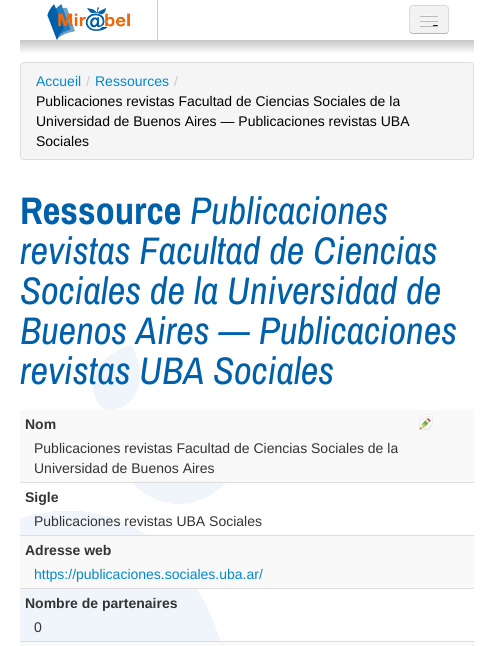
import math
import cairo


def use_color(cr, r, g, b):
  cr.set_source_rgb(r / 255, g / 255, b / 255)

def text(cr, x, y, s, family, size, color, bold=False, italic=False):
  cr.select_font_face(family, cairo.FONT_SLANT_ITALIC if italic else cairo.FONT_SLANT_NORMAL, cairo.FONT_WEIGHT_BOLD if bold else cairo.FONT_WEIGHT_NORMAL)
  cr.set_font_size(size)
  use_color(cr, *color)
  cr.move_to(x, y)
  cr.show_text(s)

def box(cr, x, y, w, h, *color):
  use_color(cr, *color)
  cr.rectangle(x, y, w, h)
  cr.fill()

def round_rect(cr, x, y, w, h, r):
  cr.new_sub_path()
  for i, (u, v) in enumerate([(x + w - r, y + h - r), (x + r, y + h - r), (x + r, y + r), (x + w - r, y + r)]):
    cr.arc(u, v, r, i * math.pi / 2, (i + 1) * math.pi / 2)
  cr.close_path()

def picture(cr, path, x, y, w, h):
  cr.save()
  cr.set_source_surface(cairo.ImageSurface.create_from_png(path), x, y)
  cr.rectangle(x, y, w, h)
  cr.fill()
  cr.restore()

def draw(cr):
  use_color(cr, 255, 255, 255)
  cr.paint()
  box(cr, 157, 0, 1, 40, 204, 204, 204)
  gradient = cairo.LinearGradient(247, 40, 247, 54)
  gradient.add_color_stop_rgba(0, 0.776, 0.776, 0.776, 1)
  gradient.add_color_stop_rgba(1, 1, 1, 1, 1)
  cr.set_source(gradient)
  cr.rectangle(20, 40, 454, 13)
  cr.fill()
  picture(cr, "img_01.png", 47, 4, 83, 37)
  use_color(cr, 242, 242, 242)
  round_rect(cr, 409, 5, 40, 29, 4)
  cr.fill()
  cr.save()
  round_rect(cr, 409, 5, 40, 29, 4)
  cr.clip()
  box(cr, 409, 6, 40, 27, 242, 242, 242)
  cr.restore()
  cr.new_path()
  cr.move_to(447.5, 32.5)
  cr.curve_to(447, 33, 446, 33.5, 445, 33.5)
  cr.line_to(413, 33.5)
  cr.curve_to(412, 33.5, 411, 33, 410.5, 32.5)
  cr.set_source_rgba(0, 0, 0, 0.25)
  cr.set_line_width(1)
  cr.stroke()
  cr.new_path()
  cr.move_to(410.5, 32.5)
  cr.curve_to(410, 32, 409.5, 31, 409.5, 30)
  cr.line_to(409.5, 9)
  cr.curve_to(409.5, 8, 410, 7, 410.5, 6.5)
  cr.curve_to(411, 6, 412, 5.5, 413, 5.5)
  cr.line_to(445, 5.5)
  cr.curve_to(446, 5.5, 447, 6, 447.5, 6.5)
  cr.curve_to(448, 7, 448.5, 8, 448.5, 9)
  cr.line_to(448.5, 30)
  cr.curve_to(448.5, 31, 448, 32, 447.5, 32.5)
  cr.set_source_rgba(0, 0, 0, 0.1)
  cr.stroke()
  use_color(cr, 182, 182, 182)
  cr.new_path()
  cr.move_to(420, 15.5)
  cr.curve_to(419, 17.5, 423.5, 17, 423.5, 17)
  cr.line_to(434.5, 17)
  cr.curve_to(434.5, 17, 439, 17.5, 438, 15.5)
  cr.curve_to(437, 16.5, 430.5, 16, 429, 16)
  cr.curve_to(427.5, 16, 421, 16.5, 420, 15.5)
  cr.close_path()
  cr.fill()
  use_color(cr, 245, 245, 245)
  round_rect(cr, 420, 14, 18, 2, 1)
  cr.fill()
  use_color(cr, 182, 182, 182)
  cr.new_path()
  cr.move_to(420, 20.5)
  cr.curve_to(419, 22.5, 423.5, 22, 423.5, 22)
  cr.line_to(434.5, 22)
  cr.curve_to(434.5, 22, 439, 22.5, 438, 20.5)
  cr.curve_to(437, 21.5, 430.5, 21, 429, 21)
  cr.curve_to(427.5, 21, 421, 21.5, 420, 20.5)
  cr.close_path()
  cr.fill()
  use_color(cr, 245, 245, 245)
  round_rect(cr, 420, 19, 18, 2, 1)
  cr.fill()
  use_color(cr, 182, 182, 182)
  cr.new_path()
  cr.move_to(420, 25.5)
  cr.curve_to(419, 27.5, 423.5, 27, 423.5, 27)
  cr.line_to(434.5, 27)
  cr.curve_to(434.5, 27, 439, 27.5, 438, 25.5)
  cr.curve_to(437, 26.5, 430.5, 26, 429, 26)
  cr.curve_to(427.5, 26, 421, 26.5, 420, 25.5)
  cr.close_path()
  cr.fill()
  use_color(cr, 245, 245, 245)
  round_rect(cr, 420, 24, 18, 2, 1)
  cr.fill()
  picture(cr, "img_02.png", 433, 25, 5, 1)
  picture(cr, "img_03.png", 20, 345, 205, 296)
  round_rect(cr, 20.5, 62.5, 453, 97, 3.5)
  cr.fill_preserve()
  use_color(cr, 221, 221, 221)
  cr.stroke()
  box(cr, 20, 482, 454, 1, 221, 221, 221)
  box(cr, 20, 410, 454, 72, 249, 249, 249)
  box(cr, 20, 535, 454, 1, 221, 221, 221)
  box(cr, 20, 588, 454, 1, 221, 221, 221)
  box(cr, 20, 536, 454, 52, 249, 249, 249)
  box(cr, 20, 641, 454, 1, 221, 221, 221)
  box(cr, 20, 642, 454, 4, 249, 249, 249)
  picture(cr, "img_04.png", 419, 414, 14, 16)
  text(cr, 36, 86, "Accueil", "Liberation Sans", 14, (0, 136, 204))
  text(cr, 86, 86, "/", "Liberation Sans", 14, (204, 204, 204))
  text(cr, 95, 86, "Ressources", "Liberation Sans", 14, (0, 136, 204))
  text(cr, 174, 86, "/", "Liberation Sans", 14, (204, 204, 204))
  text(cr, 36, 106, "Publicaciones revistas Facultad de Ciencias Sociales de la", "Liberation Sans", 14, (0, 0, 0))
  text(cr, 36, 126, "Universidad de Buenos Aires — Publicaciones revistas UBA", "Liberation Sans", 14, (0, 0, 0))
  text(cr, 36, 146, "Sociales", "Liberation Sans", 14, (0, 0, 0))
  text(cr, 20, 224, "Ressource", "Archivo Narrow", 38.5, (0, 96, 169), bold=True)
  text(cr, 190, 224, "Publicaciones", "Archivo Narrow", 38.5, (0, 96, 169), italic=True)
  text(cr, 20, 264, "revistas Facultad de Ciencias", "Archivo Narrow", 38.5, (0, 96, 169), italic=True)
  text(cr, 20, 304, "Sociales de la Universidad de", "Archivo Narrow", 38.5, (0, 96, 169), italic=True)
  text(cr, 20, 344, "Buenos Aires — Publicaciones", "Archivo Narrow", 38.5, (0, 96, 169), italic=True)
  text(cr, 20, 384, "revistas UBA Sociales", "Archivo Narrow", 38.5, (0, 96, 169), italic=True)
  text(cr, 25, 429, "Nom", "Liberation Sans", 14, (51, 51, 51), bold=True)
  text(cr, 34, 453, "Publicaciones revistas Facultad de Ciencias Sociales de la", "Liberation Sans", 14, (51, 51, 51))
  text(cr, 34, 473, "Universidad de Buenos Aires", "Liberation Sans", 14, (51, 51, 51))
  text(cr, 25, 502, "Sigle", "Liberation Sans", 14, (51, 51, 51), bold=True)
  text(cr, 34, 526, "Publicaciones revistas UBA Sociales", "Liberation Sans", 14, (51, 51, 51))
  text(cr, 25, 555, "Adresse web", "Liberation Sans", 14, (51, 51, 51), bold=True)
  text(cr, 34, 579, "https://publicaciones.sociales.uba.ar/", "Liberation Sans", 14, (0, 136, 204))
  text(cr, 25, 608, "Nombre de partenaires", "Liberation Sans", 14, (51, 51, 51), bold=True)
  text(cr, 34, 632, "0", "Liberation Sans", 14, (51, 51, 51))


surface = cairo.ImageSurface(cairo.FORMAT_RGB24, 494, 646)
cr = cairo.Context(surface)
options = cairo.FontOptions()
options.set_hint_metrics(cairo.HINT_METRICS_OFF)
options.set_hint_style(cairo.HINT_STYLE_NONE)
cr.set_font_options(options)
cr.set_miter_limit(4)
draw(cr)
surface.write_to_png("out.png")
